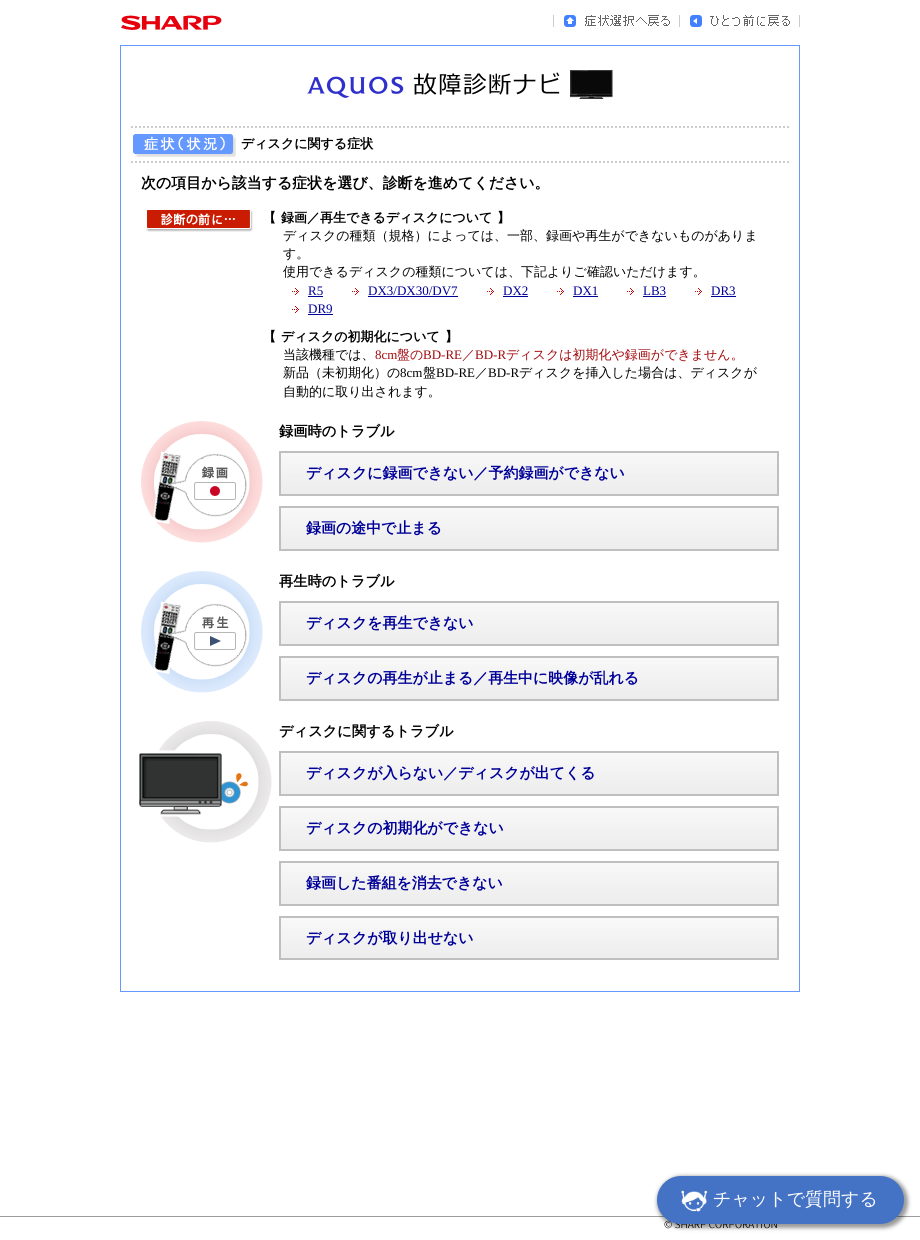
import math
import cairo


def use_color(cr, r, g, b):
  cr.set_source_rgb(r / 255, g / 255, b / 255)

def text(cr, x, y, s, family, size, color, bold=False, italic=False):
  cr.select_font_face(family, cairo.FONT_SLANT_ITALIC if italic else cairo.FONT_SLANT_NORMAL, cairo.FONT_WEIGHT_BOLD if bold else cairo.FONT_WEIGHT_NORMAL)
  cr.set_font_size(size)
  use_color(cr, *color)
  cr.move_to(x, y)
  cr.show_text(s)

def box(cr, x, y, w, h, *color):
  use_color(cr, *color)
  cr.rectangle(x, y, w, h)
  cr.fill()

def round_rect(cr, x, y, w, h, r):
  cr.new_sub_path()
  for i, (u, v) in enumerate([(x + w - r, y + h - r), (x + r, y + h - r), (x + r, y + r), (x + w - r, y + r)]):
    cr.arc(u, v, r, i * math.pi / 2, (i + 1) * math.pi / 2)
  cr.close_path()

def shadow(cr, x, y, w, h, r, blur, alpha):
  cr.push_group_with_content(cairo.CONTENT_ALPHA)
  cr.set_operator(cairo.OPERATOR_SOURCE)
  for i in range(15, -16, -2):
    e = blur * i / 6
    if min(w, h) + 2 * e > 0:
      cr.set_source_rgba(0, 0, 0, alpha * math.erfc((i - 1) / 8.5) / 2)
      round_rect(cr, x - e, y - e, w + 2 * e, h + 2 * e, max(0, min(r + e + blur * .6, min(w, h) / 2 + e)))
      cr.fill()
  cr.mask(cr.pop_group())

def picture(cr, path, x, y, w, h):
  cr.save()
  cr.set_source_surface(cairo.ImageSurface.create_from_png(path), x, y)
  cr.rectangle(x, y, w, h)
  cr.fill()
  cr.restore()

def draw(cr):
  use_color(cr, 255, 255, 255)
  cr.paint()
  picture(cr, "img_01.png", 121, 15, 101, 15)
  box(cr, 679, 15, 1, 12, 204, 204, 204)
  box(cr, 553, 15, 1, 12, 204, 204, 204)
  picture(cr, "img_02.png", 564, 15, 106, 12)
  box(cr, 799, 15, 1, 12, 204, 204, 204)
  picture(cr, "img_03.png", 690, 15, 100, 12)
  cr.rectangle(120.5, 45.5, 679, 946)
  use_color(cr, 102, 153, 255)
  cr.set_line_width(1)
  cr.stroke()
  picture(cr, "img_04.png", 307, 70, 306, 29)
  picture(cr, "img_05.png", 133, 134, 103, 23)
  cr.new_path()
  cr.move_to(131, 127)
  cr.line_to(789, 127)
  use_color(cr, 204, 204, 204)
  cr.set_line_width(2)
  cr.set_dash([2, 2])
  cr.stroke()
  cr.new_path()
  cr.move_to(131, 162)
  cr.line_to(789, 162)
  cr.stroke()
  picture(cr, "img_06.png", 146, 210, 107, 22)
  picture(cr, "img_07.png", 292, 288, 7, 7)
  box(cr, 308, 296, 15, 1, 0, 0, 153)
  picture(cr, "img_07.png", 352, 288, 7, 7)
  box(cr, 368, 296, 90, 1, 0, 0, 153)
  picture(cr, "img_07.png", 487, 288, 7, 7)
  box(cr, 503, 296, 25, 1, 0, 0, 153)
  picture(cr, "img_07.png", 557, 288, 7, 7)
  box(cr, 573, 296, 25, 1, 0, 0, 153)
  picture(cr, "img_07.png", 627, 288, 7, 7)
  box(cr, 643, 296, 23, 1, 0, 0, 153)
  picture(cr, "img_07.png", 695, 288, 7, 7)
  box(cr, 711, 296, 25, 1, 0, 0, 153)
  picture(cr, "img_07.png", 292, 306, 7, 7)
  box(cr, 308, 314, 25, 1, 0, 0, 153)
  picture(cr, "img_08.png", 141, 421, 122, 122)
  picture(cr, "img_09.png", 281, 453, 496, 41)
  cr.rectangle(280, 452, 498, 43)
  use_color(cr, 191, 191, 191)
  cr.set_dash([])
  cr.stroke()
  picture(cr, "img_09.png", 281, 508, 496, 41)
  cr.rectangle(280, 507, 498, 43)
  cr.stroke()
  picture(cr, "img_10.png", 141, 571, 122, 122)
  picture(cr, "img_09.png", 281, 603, 496, 41)
  cr.rectangle(280, 602, 498, 43)
  cr.stroke()
  picture(cr, "img_09.png", 281, 658, 496, 41)
  cr.rectangle(280, 657, 498, 43)
  cr.stroke()
  picture(cr, "img_11.png", 139, 721, 133, 122)
  picture(cr, "img_09.png", 281, 753, 496, 41)
  cr.rectangle(280, 752, 498, 43)
  cr.stroke()
  picture(cr, "img_09.png", 281, 808, 496, 41)
  cr.rectangle(280, 807, 498, 43)
  cr.stroke()
  picture(cr, "img_09.png", 281, 863, 496, 41)
  cr.rectangle(280, 862, 498, 43)
  cr.stroke()
  picture(cr, "img_12.png", 281, 918, 496, 40)
  cr.rectangle(280, 917, 498, 42)
  cr.stroke()
  box(cr, 0, 1216, 920, 1, 156, 156, 156)
  picture(cr, "img_13.png", 664, 1220, 113, 9)
  use_color(cr, 0, 0, 0)
  shadow(cr, 657, 1176, 251, 52, 26, 2, 0.4)
  use_color(cr, 68, 114, 196)
  round_rect(cr, 658, 1177, 245, 46, 23)
  cr.fill_preserve()
  cr.stroke()
  picture(cr, "img_14.png", 681, 1190, 27, 22)
  text(cr, 241, 148, "ディスクに関する症状", "WenQuanYi Zen Hei", 13, (0, 0, 0), bold=True)
  text(cr, 141, 188, "次の項目から該当する症状を選び、診断を進めてください。", "WenQuanYi Zen Hei", 14.95, (0, 0, 0), bold=True)
  text(cr, 263, 222, "【", "WenQuanYi Zen Hei", 13, (0, 0, 0), bold=True)
  text(cr, 281, 222, "録画／再生できるディスクについて", "WenQuanYi Zen Hei", 13, (0, 0, 0), bold=True)
  text(cr, 497, 222, "】", "WenQuanYi Zen Hei", 13, (0, 0, 0), bold=True)
  text(cr, 283, 240, "ディスクの種類（規格）によっては、一部、録画や再生ができないものがありま", "WenQuanYi Zen Hei Medium", 13, (0, 0, 0))
  text(cr, 283, 258, "す。", "WenQuanYi Zen Hei Medium", 13, (0, 0, 0))
  text(cr, 283, 276, "使用できるディスクの種類については、下記よりご確認いただけます。", "WenQuanYi Zen Hei Medium", 13, (0, 0, 0))
  text(cr, 308, 295, "R5", "Liberation Serif", 13, (0, 0, 153))
  text(cr, 368, 295, "DX3/DX30/DV7", "Liberation Serif", 13, (0, 0, 153))
  text(cr, 503, 295, "DX2", "Liberation Serif", 13, (0, 0, 153))
  text(cr, 573, 295, "DX1", "Liberation Serif", 13, (0, 0, 153))
  text(cr, 643, 295, "LB3", "Liberation Serif", 13, (0, 0, 153))
  text(cr, 711, 295, "DR3", "Liberation Serif", 13, (0, 0, 153))
  text(cr, 308, 313, "DR9", "Liberation Serif", 13, (0, 0, 153))
  text(cr, 263, 341, "【", "WenQuanYi Zen Hei", 13, (0, 0, 0), bold=True)
  text(cr, 281, 341, "ディスクの初期化について", "WenQuanYi Zen Hei", 13, (0, 0, 0), bold=True)
  text(cr, 445, 341, "】", "WenQuanYi Zen Hei", 13, (0, 0, 0), bold=True)
  text(cr, 283, 359, "当該機種では、", "WenQuanYi Zen Hei Medium", 13, (0, 0, 0))
  text(cr, 375, 359, "8cm", "Liberation Serif", 13, (162, 9, 12))
  text(cr, 397, 359, "盤の", "WenQuanYi Zen Hei Medium", 13, (162, 9, 12))
  text(cr, 423, 359, "BD-RE", "Liberation Serif", 13, (162, 9, 12))
  text(cr, 462, 359, "／", "WenQuanYi Zen Hei Medium", 13, (162, 9, 12))
  text(cr, 475, 359, "BD-R", "Liberation Serif", 13, (162, 9, 12))
  text(cr, 506, 359, "ディスクは初期化や録画ができません。", "WenQuanYi Zen Hei Medium", 13, (162, 9, 12))
  text(cr, 283, 377, "新品（未初期化）の", "WenQuanYi Zen Hei Medium", 13, (0, 0, 0))
  text(cr, 400, 377, "8cm", "Liberation Serif", 13, (0, 0, 0))
  text(cr, 423, 377, "盤", "WenQuanYi Zen Hei Medium", 13, (0, 0, 0))
  text(cr, 436, 377, "BD-RE", "Liberation Serif", 13, (0, 0, 0))
  text(cr, 475, 377, "／", "WenQuanYi Zen Hei Medium", 13, (0, 0, 0))
  text(cr, 488, 377, "BD-R", "Liberation Serif", 13, (0, 0, 0))
  text(cr, 519, 377, "ディスクを挿入した場合は、ディスクが", "WenQuanYi Zen Hei Medium", 13, (0, 0, 0))
  text(cr, 283, 396, "自動的に取り出されます。", "WenQuanYi Zen Hei Medium", 13, (0, 0, 0))
  text(cr, 279, 436, "録画時のトラブル", "WenQuanYi Zen Hei", 14.25, (0, 0, 0), bold=True)
  text(cr, 306, 478, "ディスクに録画できない／予約録画ができない", "WenQuanYi Zen Hei", 14.95, (0, 0, 153), bold=True)
  text(cr, 306, 533, "録画の途中で止まる", "WenQuanYi Zen Hei", 14.95, (0, 0, 153), bold=True)
  text(cr, 279, 586, "再生時のトラブル", "WenQuanYi Zen Hei", 14.25, (0, 0, 0), bold=True)
  text(cr, 306, 628, "ディスクを再生できない", "WenQuanYi Zen Hei", 14.95, (0, 0, 153), bold=True)
  text(cr, 306, 683, "ディスクの再生が止まる／再生中に映像が乱れる", "WenQuanYi Zen Hei", 14.95, (0, 0, 153), bold=True)
  text(cr, 279, 736, "ディスクに関するトラブル", "WenQuanYi Zen Hei", 14.25, (0, 0, 0), bold=True)
  text(cr, 306, 778, "ディスクが入らない／ディスクが出てくる", "WenQuanYi Zen Hei", 14.95, (0, 0, 153), bold=True)
  text(cr, 306, 833, "ディスクの初期化ができない", "WenQuanYi Zen Hei", 14.95, (0, 0, 153), bold=True)
  text(cr, 306, 888, "録画した番組を消去できない", "WenQuanYi Zen Hei", 14.95, (0, 0, 153), bold=True)
  text(cr, 306, 943, "ディスクが取り出せない", "WenQuanYi Zen Hei", 14.95, (0, 0, 153), bold=True)
  text(cr, 713, 1205, "チャットで質問する", "WenQuanYi Zen Hei Medium", 18, (255, 255, 255))


surface = cairo.ImageSurface(cairo.FORMAT_RGB24, 920, 1240)
cr = cairo.Context(surface)
options = cairo.FontOptions()
options.set_hint_metrics(cairo.HINT_METRICS_OFF)
options.set_hint_style(cairo.HINT_STYLE_NONE)
cr.set_font_options(options)
cr.set_miter_limit(4)
draw(cr)
surface.write_to_png("out.png")
